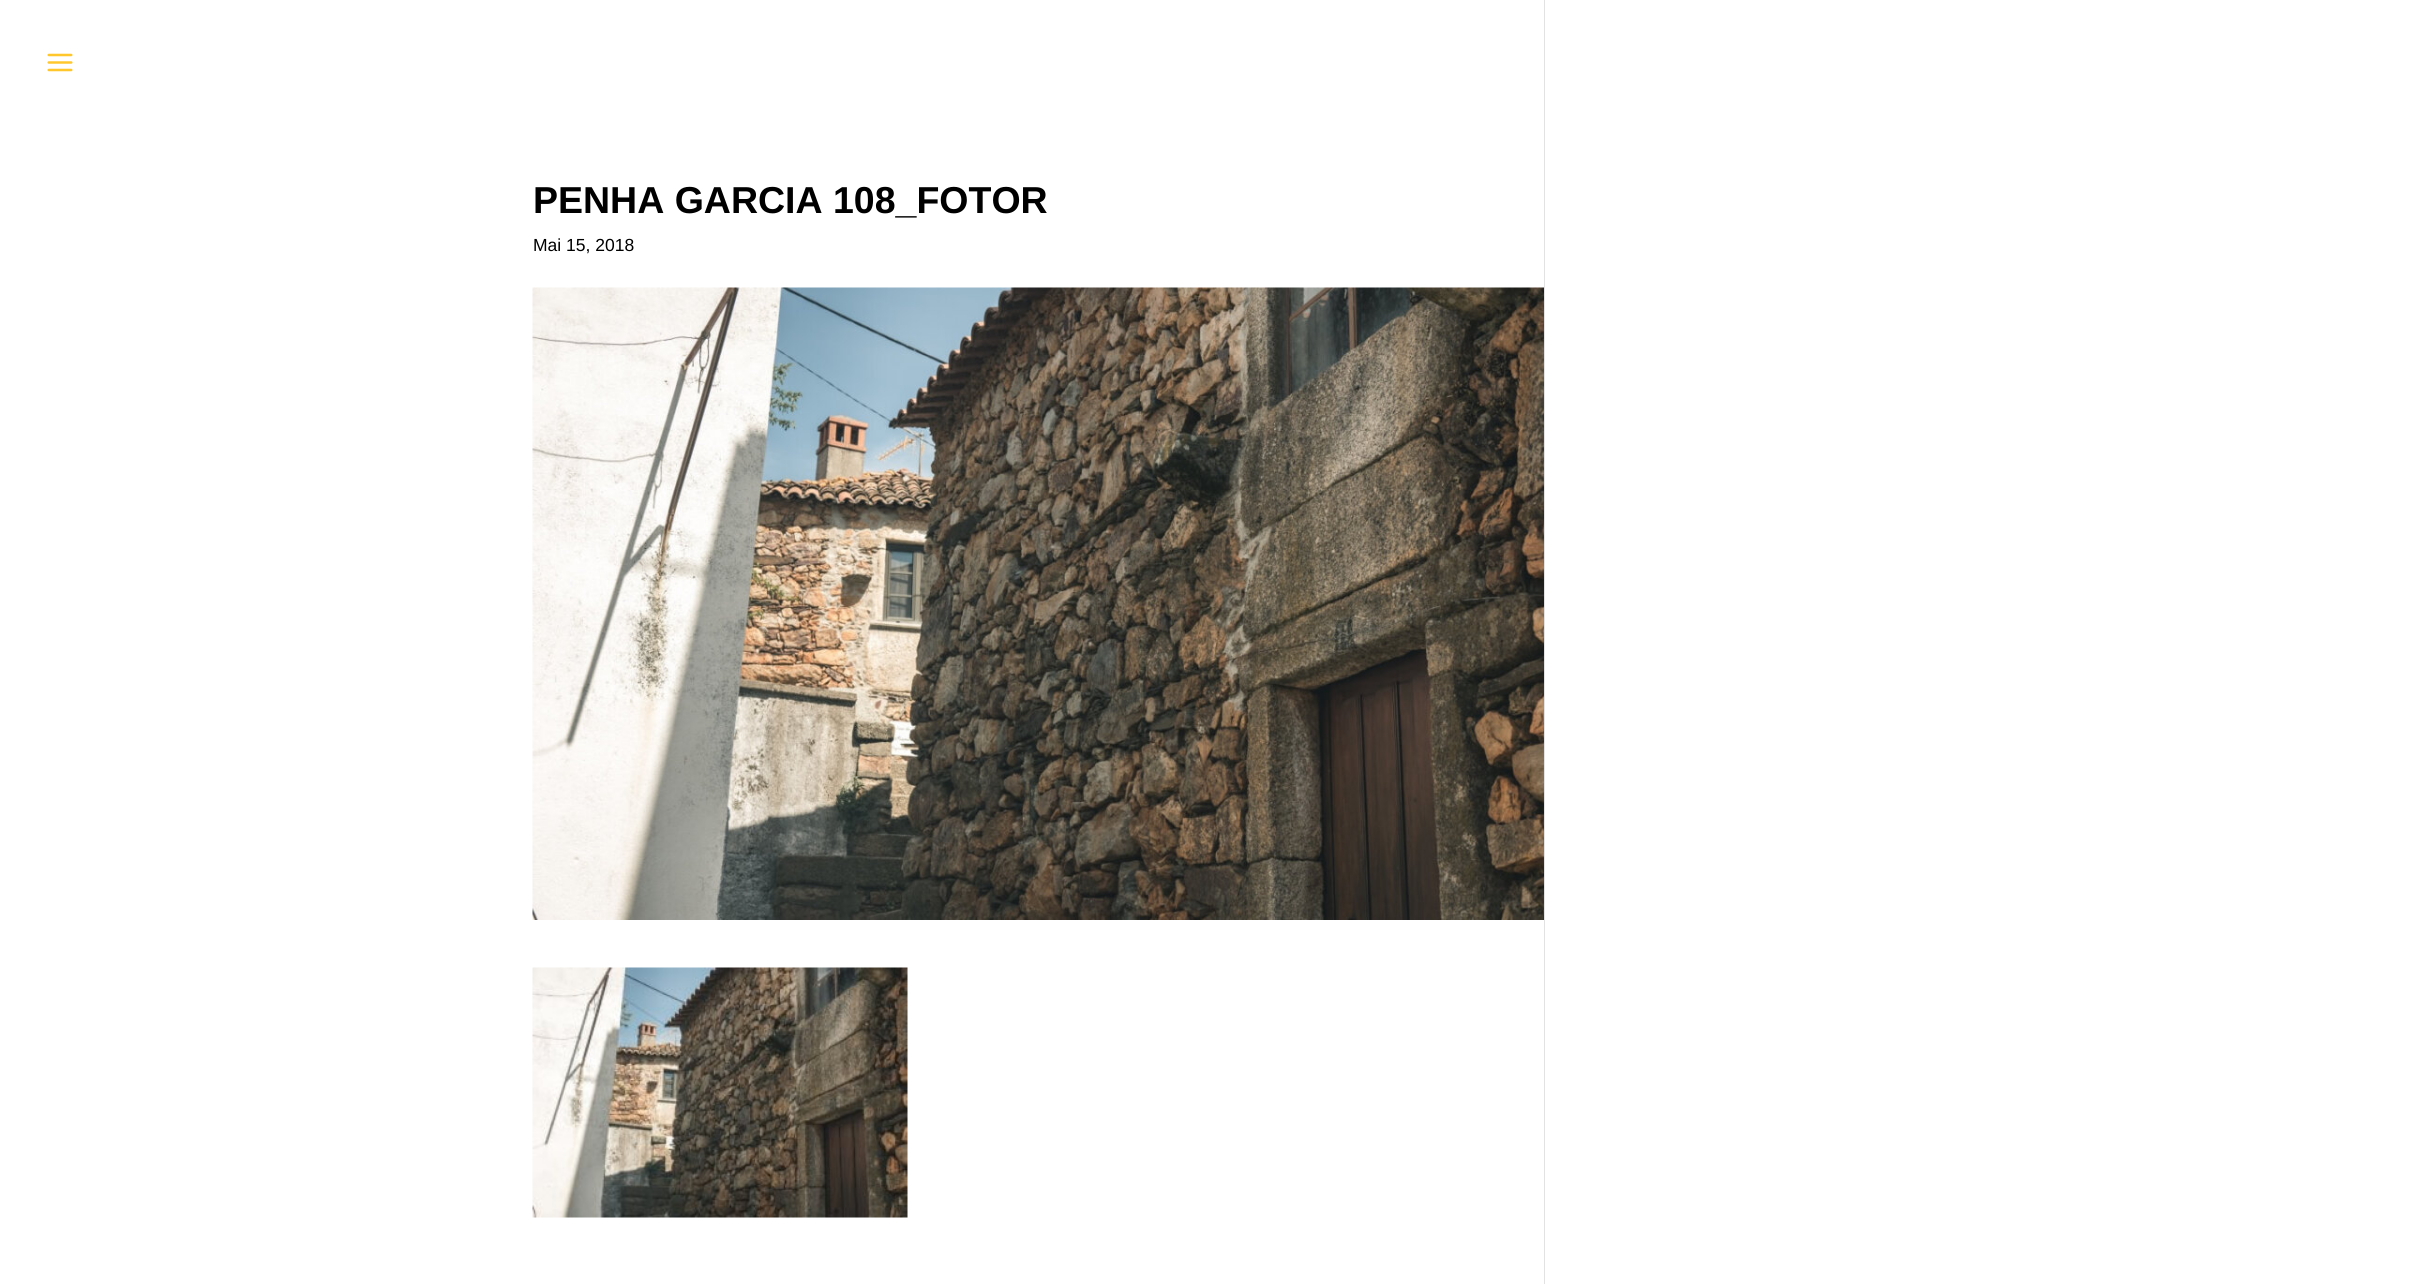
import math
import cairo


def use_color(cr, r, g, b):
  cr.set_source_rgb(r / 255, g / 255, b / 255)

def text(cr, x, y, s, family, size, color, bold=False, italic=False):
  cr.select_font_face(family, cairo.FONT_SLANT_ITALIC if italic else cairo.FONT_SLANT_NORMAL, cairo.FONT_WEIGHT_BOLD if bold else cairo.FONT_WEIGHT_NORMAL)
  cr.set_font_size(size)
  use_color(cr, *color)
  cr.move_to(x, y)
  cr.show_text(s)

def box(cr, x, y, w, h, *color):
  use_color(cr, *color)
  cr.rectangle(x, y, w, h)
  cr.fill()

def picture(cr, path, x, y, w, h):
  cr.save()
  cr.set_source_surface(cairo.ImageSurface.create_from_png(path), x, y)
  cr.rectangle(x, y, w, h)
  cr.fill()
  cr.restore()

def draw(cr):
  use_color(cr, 255, 255, 255)
  cr.paint()
  picture(cr, "img_01.png", 47, 53, 26, 19)
  picture(cr, "img_02.png", 532, 287, 1012, 633)
  picture(cr, "img_03.png", 532, 967, 376, 251)
  box(cr, 1544, 0, 1, 1284, 226, 226, 226)
  text(cr, 533, 213, "PENHA GARCIA 108_FOTOR", "Liberation Sans", 37.5, (0, 0, 0), bold=True)
  text(cr, 533, 251, "Mai 15, 2018", "Liberation Sans", 17.5, (0, 0, 0))


surface = cairo.ImageSurface(cairo.FORMAT_RGB24, 2415, 1284)
cr = cairo.Context(surface)
options = cairo.FontOptions()
options.set_hint_metrics(cairo.HINT_METRICS_OFF)
options.set_hint_style(cairo.HINT_STYLE_NONE)
cr.set_font_options(options)
cr.set_miter_limit(4)
draw(cr)
surface.write_to_png("out.png")
